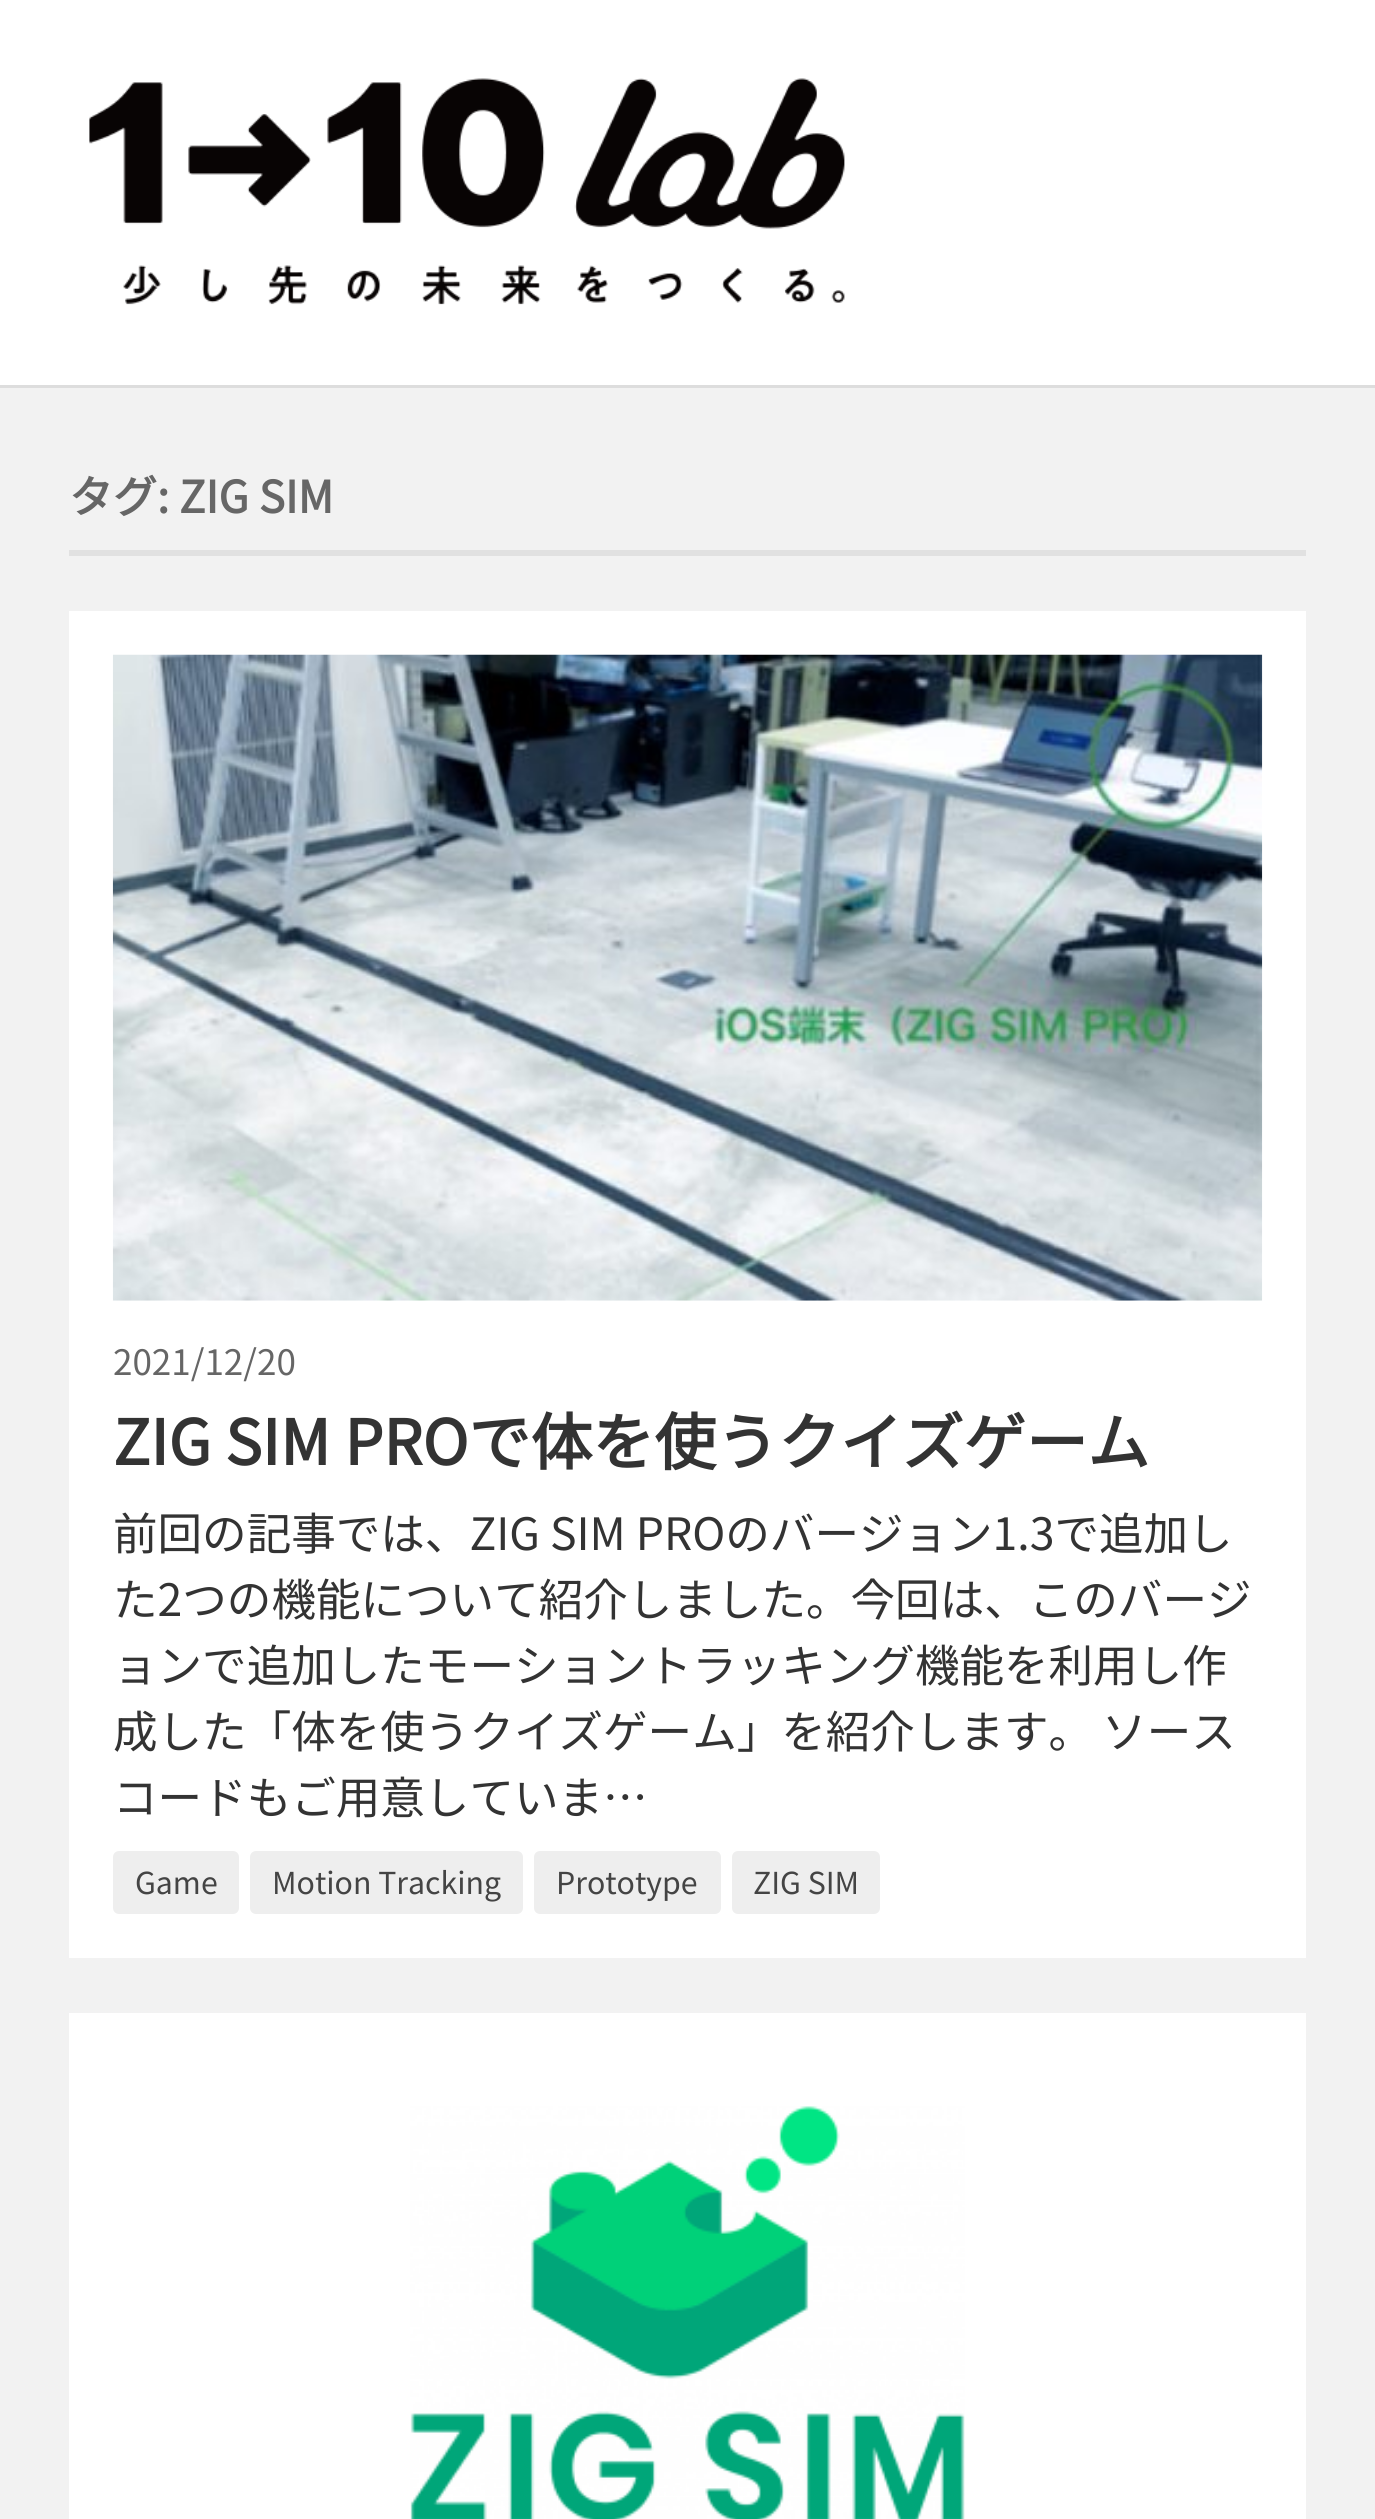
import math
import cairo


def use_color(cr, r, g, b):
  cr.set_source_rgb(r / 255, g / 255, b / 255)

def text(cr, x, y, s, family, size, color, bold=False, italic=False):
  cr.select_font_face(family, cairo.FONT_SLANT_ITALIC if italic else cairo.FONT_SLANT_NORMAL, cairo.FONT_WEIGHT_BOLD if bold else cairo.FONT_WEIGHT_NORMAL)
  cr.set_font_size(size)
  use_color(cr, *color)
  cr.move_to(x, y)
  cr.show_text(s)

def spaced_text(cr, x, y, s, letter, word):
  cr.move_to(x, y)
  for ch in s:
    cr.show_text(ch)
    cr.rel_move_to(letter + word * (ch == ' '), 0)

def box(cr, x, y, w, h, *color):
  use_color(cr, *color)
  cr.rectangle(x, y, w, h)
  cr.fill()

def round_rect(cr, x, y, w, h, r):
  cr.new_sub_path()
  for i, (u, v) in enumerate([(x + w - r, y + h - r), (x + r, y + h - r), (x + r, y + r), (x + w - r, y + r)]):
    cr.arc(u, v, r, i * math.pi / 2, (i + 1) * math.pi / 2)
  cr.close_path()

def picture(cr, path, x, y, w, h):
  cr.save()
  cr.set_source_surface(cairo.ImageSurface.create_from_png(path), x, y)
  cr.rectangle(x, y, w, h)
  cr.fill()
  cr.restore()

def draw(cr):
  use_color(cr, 242, 242, 242)
  cr.paint()
  box(cr, 0, 0, 1375, 385, 255, 255, 255)
  box(cr, 0, 385, 1375, 3, 221, 221, 221)
  picture(cr, "img_01.png", 89, 78, 756, 227)
  box(cr, 69, 550, 1237, 6, 225, 225, 225)
  box(cr, 69, 611, 1237, 1347, 255, 255, 255)
  picture(cr, "img_02.png", 112, 654, 1151, 647)
  use_color(cr, 238, 238, 238)
  round_rect(cr, 113, 1851, 126, 63, 6)
  cr.fill()
  round_rect(cr, 250, 1851, 273, 63, 6)
  cr.fill()
  round_rect(cr, 534, 1851, 187, 63, 6)
  cr.fill()
  round_rect(cr, 732, 1851, 148, 63, 6)
  cr.fill()
  box(cr, 69, 2013, 1237, 506, 255, 255, 255)
  picture(cr, "img_03.png", 410, 2106, 555, 413)
  text(cr, 69, 513, "タグ: ZIG SIM", "Noto Sans JP", 44, (102, 102, 102), bold=True)
  text(cr, 113, 1375, "2021/12/20", "Noto Sans JP Thin", 35, (102, 102, 102))
  text(cr, 113, 1465, "ZIG SIM PROで体を使うクイズゲーム", "Noto Sans JP", 61.9, (51, 51, 51), bold=True)
  text(cr, 113, 1550, "前回の記事では、ZIG SIM PROのバージョン1.3で追加し", "Noto Sans JP Thin", 44.55, (51, 51, 51))
  text(cr, 113, 1616, "た2つの機能について紹介しました。今回は、このバージ", "Noto Sans JP Thin", 44.55, (51, 51, 51))
  text(cr, 113, 1682, "ョンで追加したモーショントラッキング機能を利用し作", "Noto Sans JP Thin", 44.55, (51, 51, 51))
  spaced_text(cr, 113, 1748, "成した「体を使うクイズゲーム」を紹介します。 ソース", 0, -1)
  text(cr, 113, 1814, "コードもご用意していま…", "Noto Sans JP Thin", 44.55, (51, 51, 51))
  text(cr, 135, 1894, "Game", "Noto Sans JP Thin", 30.25, (68, 68, 68))
  text(cr, 272, 1894, "Motion Tracking", "Noto Sans JP Thin", 30.25, (68, 68, 68))
  text(cr, 556, 1894, "Prototype", "Noto Sans JP Thin", 30.25, (68, 68, 68))
  text(cr, 753, 1894, "ZIG SIM", "Noto Sans JP Thin", 30.25, (68, 68, 68))


surface = cairo.ImageSurface(cairo.FORMAT_RGB24, 1375, 2519)
cr = cairo.Context(surface)
options = cairo.FontOptions()
options.set_hint_metrics(cairo.HINT_METRICS_OFF)
options.set_hint_style(cairo.HINT_STYLE_NONE)
cr.set_font_options(options)
cr.set_miter_limit(4)
draw(cr)
surface.write_to_png("out.png")
